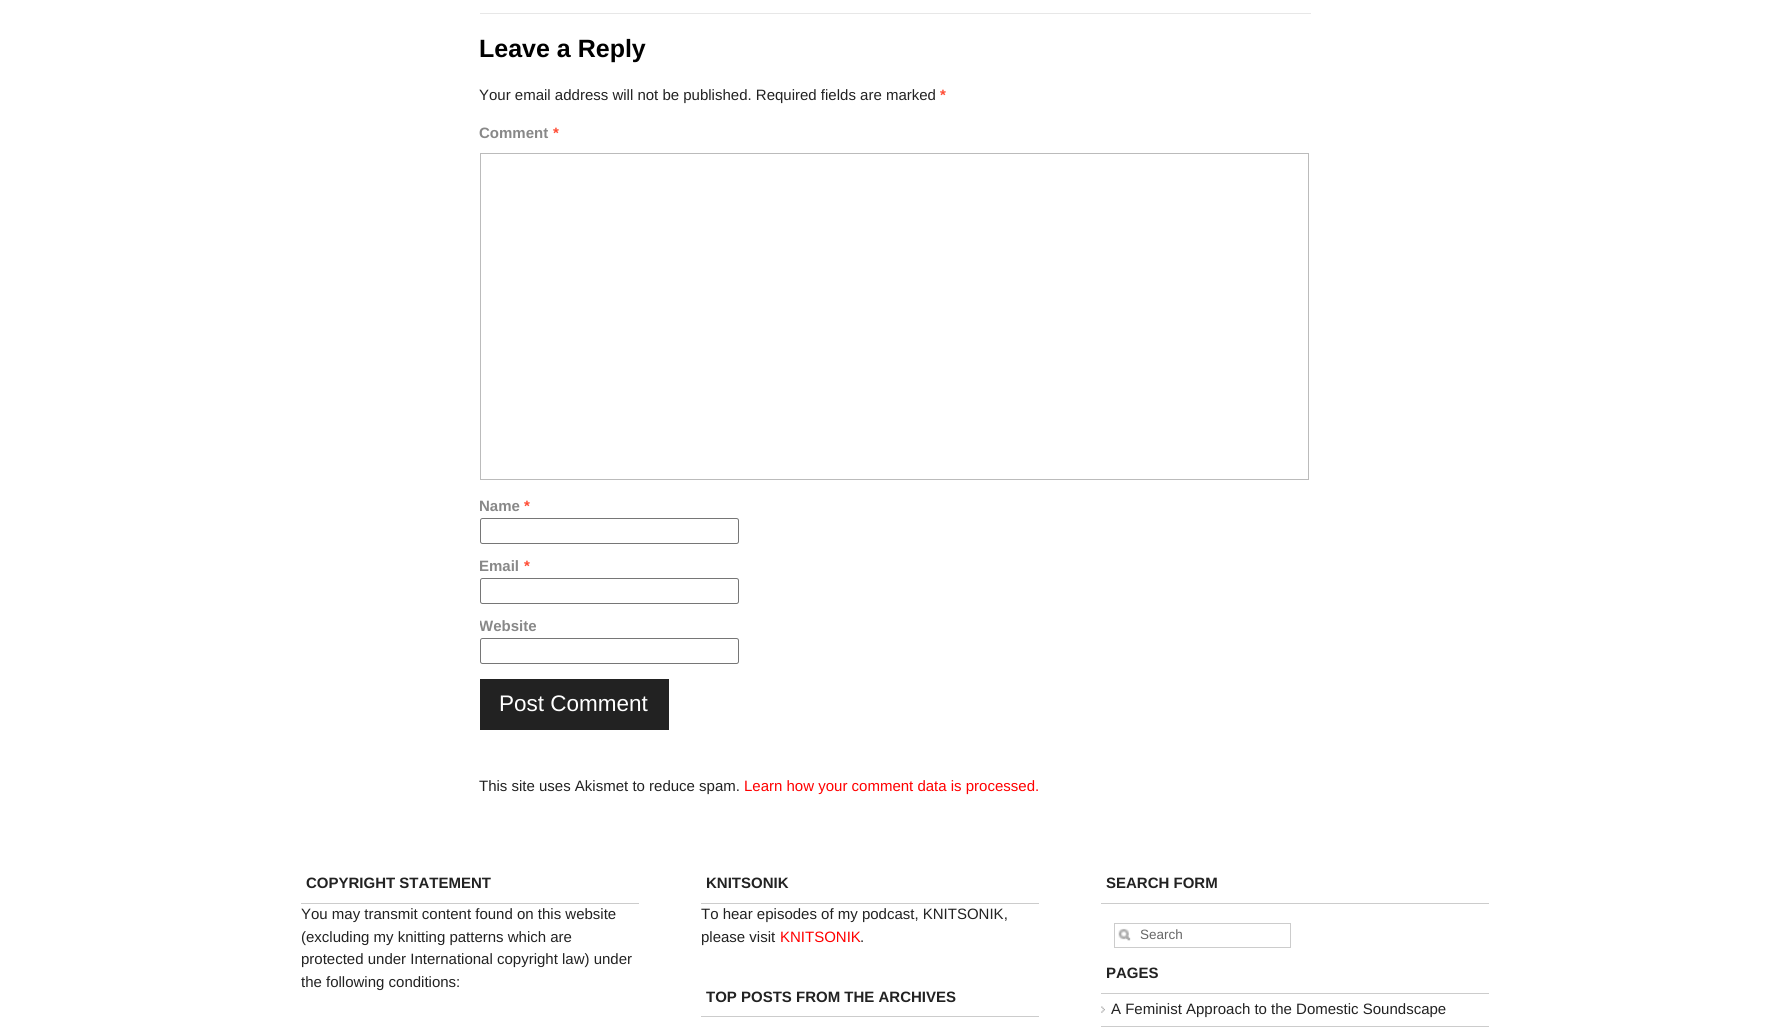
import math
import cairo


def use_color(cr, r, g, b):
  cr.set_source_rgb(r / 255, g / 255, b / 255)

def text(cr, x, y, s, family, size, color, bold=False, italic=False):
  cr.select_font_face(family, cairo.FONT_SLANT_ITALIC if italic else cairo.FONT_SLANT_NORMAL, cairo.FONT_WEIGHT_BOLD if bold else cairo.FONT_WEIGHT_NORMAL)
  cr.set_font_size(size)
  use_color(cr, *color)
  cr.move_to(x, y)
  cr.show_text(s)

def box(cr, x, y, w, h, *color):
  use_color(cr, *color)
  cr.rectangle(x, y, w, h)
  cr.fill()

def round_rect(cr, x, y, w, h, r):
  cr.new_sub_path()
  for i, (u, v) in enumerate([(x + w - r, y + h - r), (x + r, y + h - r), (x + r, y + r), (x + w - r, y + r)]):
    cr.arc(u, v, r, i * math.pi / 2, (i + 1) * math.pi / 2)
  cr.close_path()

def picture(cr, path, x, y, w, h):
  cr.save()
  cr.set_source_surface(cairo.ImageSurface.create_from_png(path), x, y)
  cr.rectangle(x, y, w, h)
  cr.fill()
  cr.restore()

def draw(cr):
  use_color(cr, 255, 255, 255)
  cr.paint()
  box(cr, 480, 13, 831, 1, 231, 231, 231)
  cr.rectangle(480.5, 153.5, 828, 326)
  use_color(cr, 187, 187, 187)
  cr.set_line_width(1)
  cr.stroke()
  round_rect(cr, 480.5, 518.5, 258, 25, 2)
  use_color(cr, 118, 118, 118)
  cr.stroke()
  round_rect(cr, 480.5, 578.5, 258, 25, 2)
  cr.stroke()
  round_rect(cr, 480.5, 638.5, 258, 25, 2)
  cr.stroke()
  box(cr, 480, 679, 189, 51, 34, 34, 34)
  box(cr, 301, 903, 338, 1, 204, 204, 204)
  box(cr, 701, 903, 338, 1, 204, 204, 204)
  box(cr, 701, 1016, 338, 1, 204, 204, 204)
  box(cr, 1101, 903, 388, 1, 204, 204, 204)
  picture(cr, "img_01.png", 1118, 928, 13, 13)
  cr.rectangle(1114.5, 923.5, 176, 24)
  cr.stroke()
  box(cr, 1101, 993, 388, 1, 204, 204, 204)
  picture(cr, "img_02.png", 1101, 1006, 4, 7)
  box(cr, 1101, 1026, 388, 1, 204, 204, 204)
  text(cr, 479, 57, "Leave a Reply", "Liberation Sans", 25, (0, 0, 0), bold=True)
  text(cr, 479, 100, "Your email address will not be published. Required fields are marked", "Liberation Sans", 15, (34, 34, 34))
  text(cr, 940, 100, "*", "Liberation Sans", 15, (255, 75, 51), bold=True)
  text(cr, 479, 138, "Comment", "Liberation Sans", 15, (136, 136, 136), bold=True)
  text(cr, 553, 138, "*", "Liberation Sans", 15, (255, 75, 51), bold=True)
  text(cr, 479, 511, "Name", "Liberation Sans", 15, (136, 136, 136), bold=True)
  text(cr, 524, 511, "*", "Liberation Sans", 15, (255, 75, 51), bold=True)
  text(cr, 479, 571, "Email", "Liberation Sans", 15, (136, 136, 136), bold=True)
  text(cr, 524, 571, "*", "Liberation Sans", 15, (255, 75, 51), bold=True)
  cr.save()
  cr.rectangle(480, 14, 831, 731)
  cr.clip()
  text(cr, 479, 631, "Website", "Liberation Sans", 15, (136, 136, 136), bold=True)
  cr.restore()
  text(cr, 499, 711, "Post Comment", "Liberation Sans", 22.5, (255, 255, 255))
  text(cr, 479, 791, "This site uses Akismet to reduce spam.", "Liberation Sans", 15, (34, 34, 34))
  text(cr, 744, 791, "Learn how your comment data is processed.", "Liberation Sans", 15, (255, 0, 0))
  text(cr, 306, 888, "COPYRIGHT STATEMENT", "Liberation Sans", 15, (34, 34, 34), bold=True)
  text(cr, 301, 919, "You may transmit content found on this website", "Liberation Sans", 15, (34, 34, 34))
  text(cr, 301, 942, "(excluding my knitting patterns which are", "Liberation Sans", 15, (34, 34, 34))
  text(cr, 301, 964, "protected under International copyright law) under", "Liberation Sans", 15, (34, 34, 34))
  text(cr, 301, 987, "the following conditions:", "Liberation Sans", 15, (34, 34, 34))
  text(cr, 706, 888, "KNITSONIK", "Liberation Sans", 15, (34, 34, 34), bold=True)
  text(cr, 701, 919, "To hear episodes of my podcast, KNITSONIK,", "Liberation Sans", 15, (34, 34, 34))
  text(cr, 701, 942, "please visit", "Liberation Sans", 15, (34, 34, 34))
  text(cr, 780, 942, "KNITSONIK", "Liberation Sans", 15, (255, 0, 0))
  text(cr, 860, 942, ".", "Liberation Sans", 15, (34, 34, 34))
  text(cr, 706, 1002, "TOP POSTS FROM THE ARCHIVES", "Liberation Sans", 15, (34, 34, 34), bold=True)
  text(cr, 1106, 888, "SEARCH FORM", "Liberation Sans", 15, (34, 34, 34), bold=True)
  text(cr, 1140, 939, "Search", "Liberation Sans", 13.5, (102, 102, 102))
  text(cr, 1106, 978, "PAGES", "Liberation Sans", 15, (34, 34, 34), bold=True)
  text(cr, 1111, 1014, "A Feminist Approach to the Domestic Soundscape", "Liberation Sans", 15, (34, 34, 34))


surface = cairo.ImageSurface(cairo.FORMAT_RGB24, 1790, 1027)
cr = cairo.Context(surface)
options = cairo.FontOptions()
options.set_hint_metrics(cairo.HINT_METRICS_OFF)
options.set_hint_style(cairo.HINT_STYLE_NONE)
cr.set_font_options(options)
cr.set_miter_limit(4)
draw(cr)
surface.write_to_png("out.png")
